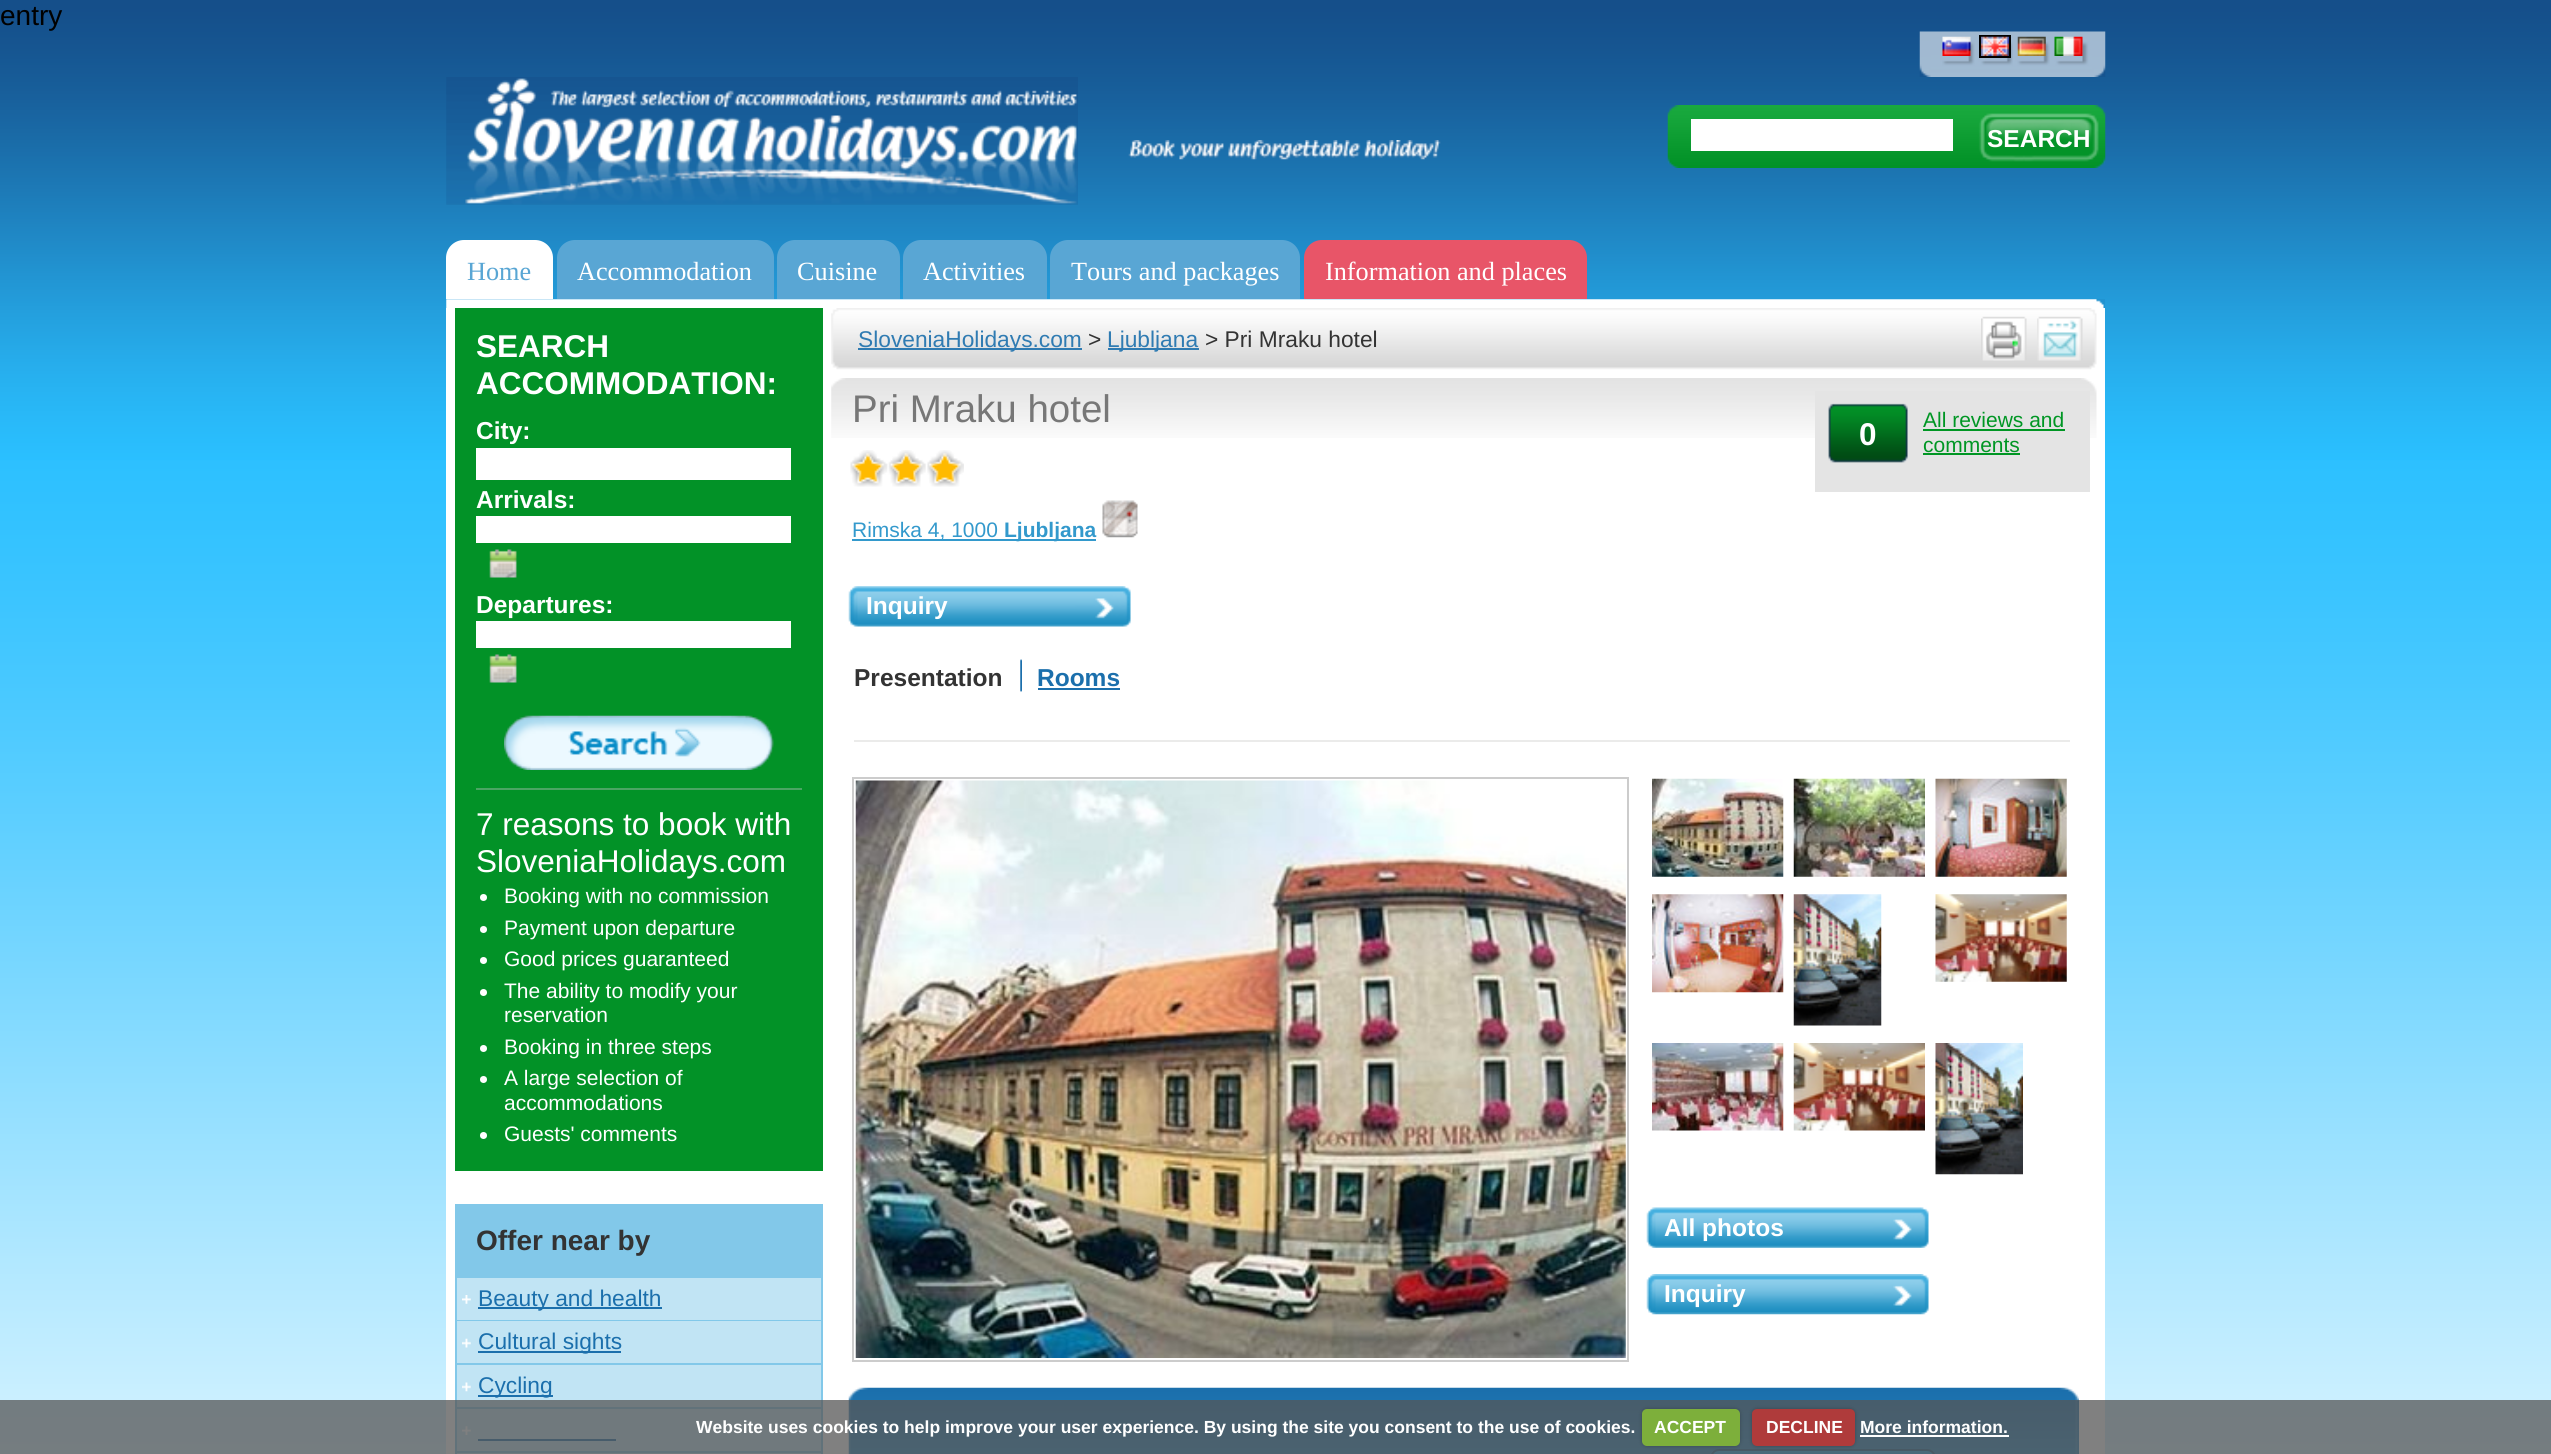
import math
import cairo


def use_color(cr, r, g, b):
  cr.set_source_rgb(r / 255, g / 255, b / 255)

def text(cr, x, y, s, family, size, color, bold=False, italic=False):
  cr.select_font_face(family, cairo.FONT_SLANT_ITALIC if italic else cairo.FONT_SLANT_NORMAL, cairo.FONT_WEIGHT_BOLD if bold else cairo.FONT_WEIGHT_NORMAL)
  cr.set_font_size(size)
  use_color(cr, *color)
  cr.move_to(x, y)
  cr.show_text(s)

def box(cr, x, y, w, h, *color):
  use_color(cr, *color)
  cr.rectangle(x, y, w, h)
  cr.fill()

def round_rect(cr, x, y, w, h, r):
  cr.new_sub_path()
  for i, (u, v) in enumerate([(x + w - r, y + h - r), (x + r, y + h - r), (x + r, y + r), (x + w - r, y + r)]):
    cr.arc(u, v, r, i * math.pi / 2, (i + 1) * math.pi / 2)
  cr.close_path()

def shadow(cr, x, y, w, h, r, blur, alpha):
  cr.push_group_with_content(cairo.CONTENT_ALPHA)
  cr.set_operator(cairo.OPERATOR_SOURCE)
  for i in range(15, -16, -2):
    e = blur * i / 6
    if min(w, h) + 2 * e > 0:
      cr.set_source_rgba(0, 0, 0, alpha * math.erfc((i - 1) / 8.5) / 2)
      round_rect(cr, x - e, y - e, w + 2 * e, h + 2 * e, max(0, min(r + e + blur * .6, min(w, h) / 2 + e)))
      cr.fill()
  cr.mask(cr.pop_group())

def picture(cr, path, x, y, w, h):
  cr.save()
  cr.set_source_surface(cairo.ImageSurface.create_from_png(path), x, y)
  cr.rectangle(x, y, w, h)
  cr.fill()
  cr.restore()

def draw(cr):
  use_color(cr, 255, 255, 255)
  cr.paint()
  picture(cr, "img_01.png", 0, 0, 2551, 1454)
  picture(cr, "img_02.png", 446, 299, 1659, 9)
  picture(cr, "img_03.png", 1919, 31, 187, 46)
  picture(cr, "img_04.png", 1942, 36, 29, 20)
  cr.rectangle(1980, 36, 30, 21)
  use_color(cr, 0, 0, 0)
  cr.stroke()
  picture(cr, "img_05.png", 1981, 36, 28, 20)
  picture(cr, "img_06.png", 2017, 36, 29, 20)
  picture(cr, "img_07.png", 2054, 36, 29, 20)
  picture(cr, "img_08.png", 446, 77, 632, 128)
  picture(cr, "img_09.png", 1128, 140, 313, 20)
  picture(cr, "img_10.png", 1667, 105, 439, 63)
  box(cr, 1691, 119, 262, 32, 255, 255, 255)
  cr.new_path()
  cr.move_to(464, 240)
  cr.line_to(535, 240)
  cr.curve_to(545, 240, 553, 248, 553, 258)
  cr.line_to(553, 299)
  cr.line_to(446, 299)
  cr.line_to(446, 258)
  cr.curve_to(446, 248, 454, 240, 464, 240)
  cr.close_path()
  cr.fill()
  use_color(cr, 89, 166, 212)
  cr.new_path()
  cr.move_to(575, 240)
  cr.line_to(756, 240)
  cr.curve_to(766, 240, 774, 248, 774, 258)
  cr.line_to(774, 299)
  cr.line_to(557, 299)
  cr.line_to(557, 258)
  cr.curve_to(557, 248, 565, 240, 575, 240)
  cr.close_path()
  cr.fill()
  cr.new_path()
  cr.move_to(795, 240)
  cr.line_to(882, 240)
  cr.curve_to(892, 240, 900, 248, 900, 258)
  cr.line_to(900, 299)
  cr.line_to(777, 299)
  cr.line_to(777, 258)
  cr.curve_to(777, 248, 785, 240, 795, 240)
  cr.close_path()
  cr.fill()
  cr.new_path()
  cr.move_to(921, 240)
  cr.line_to(1029, 240)
  cr.curve_to(1039, 240, 1047, 248, 1047, 258)
  cr.line_to(1047, 299)
  cr.line_to(903, 299)
  cr.line_to(903, 258)
  cr.curve_to(903, 248, 911, 240, 921, 240)
  cr.close_path()
  cr.fill()
  cr.new_path()
  cr.move_to(1068, 240)
  cr.line_to(1282, 240)
  cr.curve_to(1292, 240, 1300, 248, 1300, 258)
  cr.line_to(1300, 299)
  cr.line_to(1050, 299)
  cr.line_to(1050, 258)
  cr.curve_to(1050, 248, 1058, 240, 1068, 240)
  cr.close_path()
  cr.fill()
  use_color(cr, 232, 85, 104)
  cr.new_path()
  cr.move_to(1322, 240)
  cr.line_to(1569, 240)
  cr.curve_to(1579, 240, 1587, 248, 1587, 258)
  cr.line_to(1587, 299)
  cr.line_to(1304, 299)
  cr.line_to(1304, 258)
  cr.curve_to(1304, 248, 1312, 240, 1322, 240)
  cr.close_path()
  cr.fill()
  box(cr, 446, 308, 1659, 1146, 255, 255, 255)
  box(cr, 455, 308, 368, 863, 2, 146, 39)
  box(cr, 476, 448, 315, 32, 255, 255, 255)
  box(cr, 476, 516, 315, 27, 255, 255, 255)
  picture(cr, "img_11.png", 489, 549, 28, 29)
  box(cr, 476, 621, 315, 27, 255, 255, 255)
  picture(cr, "img_11.png", 489, 654, 28, 29)
  picture(cr, "img_12.png", 504, 715, 270, 55)
  box(cr, 476, 788, 326, 2, 75, 165, 99)
  use_color(cr, 255, 255, 255)
  cr.arc(483.5, 897.5, 3.5, 0, 2 * math.pi)
  cr.fill()
  cr.arc(483.5, 929.5, 3.5, 0, 2 * math.pi)
  cr.fill()
  cr.arc(483.5, 960.5, 3.5, 0, 2 * math.pi)
  cr.fill()
  cr.arc(483.5, 992.5, 3.5, 0, 2 * math.pi)
  cr.fill()
  cr.arc(483.5, 1048.5, 3.5, 0, 2 * math.pi)
  cr.fill()
  cr.arc(483.5, 1079.5, 3.5, 0, 2 * math.pi)
  cr.fill()
  cr.arc(483.5, 1135.5, 3.5, 0, 2 * math.pi)
  cr.fill()
  box(cr, 455, 1204, 368, 250, 130, 200, 233)
  box(cr, 457, 1278, 364, 42, 193, 228, 244)
  picture(cr, "img_13.png", 462, 1295, 9, 9)
  box(cr, 478, 1307, 184, 2, 27, 111, 172)
  box(cr, 457, 1321, 364, 42, 193, 228, 244)
  picture(cr, "img_14.png", 462, 1338, 9, 10)
  box(cr, 478, 1351, 143, 2, 27, 111, 172)
  box(cr, 457, 1365, 364, 42, 193, 228, 244)
  picture(cr, "img_15.png", 462, 1382, 9, 10)
  box(cr, 478, 1395, 75, 2, 27, 111, 172)
  box(cr, 457, 1409, 364, 42, 193, 228, 244)
  picture(cr, "img_16.png", 462, 1426, 9, 9)
  box(cr, 478, 1439, 138, 2, 27, 111, 172)
  box(cr, 457, 1453, 364, 1, 193, 228, 244)
  picture(cr, "img_17.png", 831, 308, 1266, 62)
  box(cr, 858, 348, 224, 2, 47, 123, 178)
  box(cr, 1108, 348, 91, 2, 47, 123, 178)
  picture(cr, "img_18.png", 1981, 316, 46, 45)
  picture(cr, "img_19.png", 2037, 316, 46, 45)
  picture(cr, "img_20.png", 831, 378, 1266, 60)
  box(cr, 1815, 391, 275, 101, 228, 228, 228)
  picture(cr, "img_21.png", 1828, 403, 80, 60)
  box(cr, 1923, 429, 142, 2, 0, 150, 36)
  box(cr, 1923, 453, 97, 2, 0, 150, 36)
  picture(cr, "img_22.png", 850, 450, 114, 37)
  box(cr, 852, 539, 244, 2, 51, 153, 204)
  picture(cr, "img_23.png", 1102, 500, 36, 38)
  picture(cr, "img_24.png", 848, 586, 283, 41)
  box(cr, 854, 740, 1216, 2, 235, 235, 234)
  picture(cr, "img_25.png", 1020, 659, 2, 33)
  box(cr, 1038, 688, 82, 2, 27, 111, 172)
  cr.rectangle(853, 778, 775, 583)
  use_color(cr, 204, 204, 204)
  cr.stroke()
  picture(cr, "img_26.png", 855, 780, 771, 578)
  picture(cr, "img_27.png", 1652, 778, 132, 99)
  picture(cr, "img_28.png", 1793, 778, 132, 99)
  picture(cr, "img_29.png", 1935, 778, 132, 99)
  picture(cr, "img_30.png", 1652, 894, 132, 99)
  picture(cr, "img_31.png", 1793, 894, 89, 132)
  picture(cr, "img_32.png", 1935, 894, 132, 88)
  picture(cr, "img_33.png", 1652, 1043, 132, 88)
  picture(cr, "img_34.png", 1793, 1043, 132, 88)
  picture(cr, "img_35.png", 1935, 1043, 88, 132)
  picture(cr, "img_36.png", 1646, 1207, 283, 41)
  picture(cr, "img_37.png", 1646, 1274, 283, 41)
  picture(cr, "img_38.png", 848, 1387, 1231, 67)
  picture(cr, "img_39.png", 1710, 1450, 225, 4)
  round_rect(cr, 1711, 1450, 224, 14, 8)
  use_color(cr, 32, 101, 142)
  cr.stroke()
  cr.set_source_rgba(0.337, 0.337, 0.337, 0.75)
  cr.rectangle(0, 1400, 2551, 54)
  cr.fill()
  use_color(cr, 0, 0, 0)
  shadow(cr, 1642, 1409, 98, 37, 5, 2, 0.25)
  use_color(cr, 125, 175, 59)
  round_rect(cr, 1642, 1409, 98, 37, 5)
  cr.fill()
  use_color(cr, 0, 0, 0)
  shadow(cr, 1752, 1409, 103, 37, 5, 2, 0.25)
  use_color(cr, 175, 59, 59)
  round_rect(cr, 1752, 1409, 103, 37, 5)
  cr.fill()
  box(cr, 1860, 1435, 149, 2, 255, 255, 255)
  text(cr, 0, 25, "entry", "Liberation Sans", 28, (0, 0, 0))
  text(cr, 1987, 147, "SEARCH", "Liberation Sans", 24.5, (255, 255, 255), bold=True)
  text(cr, 467, 280, "Home", "Liberation Serif", 26.25, (89, 166, 212))
  text(cr, 577, 280, "Accommodation", "Liberation Serif", 26.25, (255, 255, 255))
  text(cr, 797, 280, "Cuisine", "Liberation Serif", 26.25, (255, 255, 255))
  text(cr, 923, 280, "Activities", "Liberation Serif", 26.25, (255, 255, 255))
  text(cr, 1071, 280, "Tours and packages", "Liberation Serif", 26.25, (255, 255, 255))
  text(cr, 1325, 280, "Information and places", "Liberation Serif", 26.25, (255, 255, 255))
  text(cr, 476, 357, "SEARCH", "Liberation Sans", 31.5, (255, 255, 255), bold=True)
  text(cr, 476, 394, "ACCOMMODATION:", "Liberation Sans", 31.5, (255, 255, 255), bold=True)
  text(cr, 476, 439, "City:", "Liberation Sans", 24.5, (255, 255, 255), bold=True)
  text(cr, 476, 508, "Arrivals:", "Liberation Sans", 24.5, (255, 255, 255), bold=True)
  text(cr, 476, 613, "Departures:", "Liberation Sans", 24.5, (255, 255, 255), bold=True)
  text(cr, 476, 835, "7 reasons to book with", "Liberation Sans", 31.5, (255, 255, 255))
  text(cr, 476, 872, "SloveniaHolidays.com", "Liberation Sans", 31.5, (255, 255, 255))
  text(cr, 504, 903, "Booking with no commission", "Liberation Sans", 21, (255, 255, 255))
  text(cr, 504, 935, "Payment upon departure", "Liberation Sans", 21, (255, 255, 255))
  text(cr, 504, 966, "Good prices guaranteed", "Liberation Sans", 21, (255, 255, 255))
  text(cr, 504, 998, "The ability to modify your", "Liberation Sans", 21, (255, 255, 255))
  text(cr, 504, 1022, "reservation", "Liberation Sans", 21, (255, 255, 255))
  text(cr, 504, 1054, "Booking in three steps", "Liberation Sans", 21, (255, 255, 255))
  text(cr, 504, 1085, "A large selection of", "Liberation Sans", 21, (255, 255, 255))
  text(cr, 504, 1110, "accommodations", "Liberation Sans", 21, (255, 255, 255))
  text(cr, 504, 1141, "Guests' comments", "Liberation Sans", 21, (255, 255, 255))
  text(cr, 476, 1250, "Offer near by", "Liberation Sans", 28, (51, 51, 51), bold=True)
  text(cr, 478, 1306, "Beauty and health", "Liberation Sans", 22.75, (27, 111, 172))
  text(cr, 478, 1349, "Cultural sights", "Liberation Sans", 22.75, (27, 111, 172))
  text(cr, 478, 1393, "Cycling", "Liberation Sans", 22.75, (27, 111, 172))
  text(cr, 858, 347, "SloveniaHolidays.com", "Liberation Sans", 22.75, (47, 123, 178))
  text(cr, 1088, 347, ">", "Liberation Sans", 22.75, (51, 51, 51))
  text(cr, 1107, 347, "Ljubljana", "Liberation Sans", 22.75, (47, 123, 178))
  text(cr, 1205, 347, "> Pri Mraku hotel", "Liberation Sans", 22.75, (51, 51, 51))
  text(cr, 852, 422, "Pri Mraku hotel", "Liberation Sans", 38.5, (119, 119, 119))
  text(cr, 1859, 445, "0", "Liberation Sans", 31.5, (255, 255, 255), bold=True)
  text(cr, 1923, 427, "All reviews and", "Liberation Sans", 21, (0, 150, 36))
  text(cr, 1923, 452, "comments", "Liberation Sans", 21, (0, 150, 36))
  text(cr, 852, 537, "Rimska 4, 1000", "Liberation Sans", 21, (51, 153, 204))
  text(cr, 1004, 537, "Ljubljana", "Liberation Sans", 21, (51, 153, 204), bold=True)
  text(cr, 866, 614, "Inquiry", "Liberation Sans", 24.5, (255, 255, 255), bold=True)
  text(cr, 854, 686, "Presentation", "Liberation Sans", 24.5, (51, 51, 51), bold=True)
  text(cr, 1037, 686, "Rooms", "Liberation Sans", 24.5, (27, 111, 172), bold=True)
  text(cr, 1664, 1236, "All photos", "Liberation Sans", 24.5, (255, 255, 255), bold=True)
  text(cr, 1664, 1302, "Inquiry", "Liberation Sans", 24.5, (255, 255, 255), bold=True)
  text(cr, 696, 1433, "Website uses cookies to help improve your user experience. By using the site you consent to the use of cookies.", "Liberation Sans", 17.5, (255, 255, 255), bold=True)
  text(cr, 1654, 1433, "ACCEPT", "Liberation Sans", 17.5, (255, 255, 255), bold=True)
  text(cr, 1766, 1433, "DECLINE", "Liberation Sans", 17.5, (255, 255, 255), bold=True)
  text(cr, 1860, 1433, "More information.", "Liberation Sans", 17.5, (255, 255, 255), bold=True)


surface = cairo.ImageSurface(cairo.FORMAT_RGB24, 2551, 1454)
cr = cairo.Context(surface)
options = cairo.FontOptions()
options.set_hint_metrics(cairo.HINT_METRICS_OFF)
options.set_hint_style(cairo.HINT_STYLE_NONE)
cr.set_font_options(options)
cr.set_miter_limit(4)
draw(cr)
surface.write_to_png("out.png")
